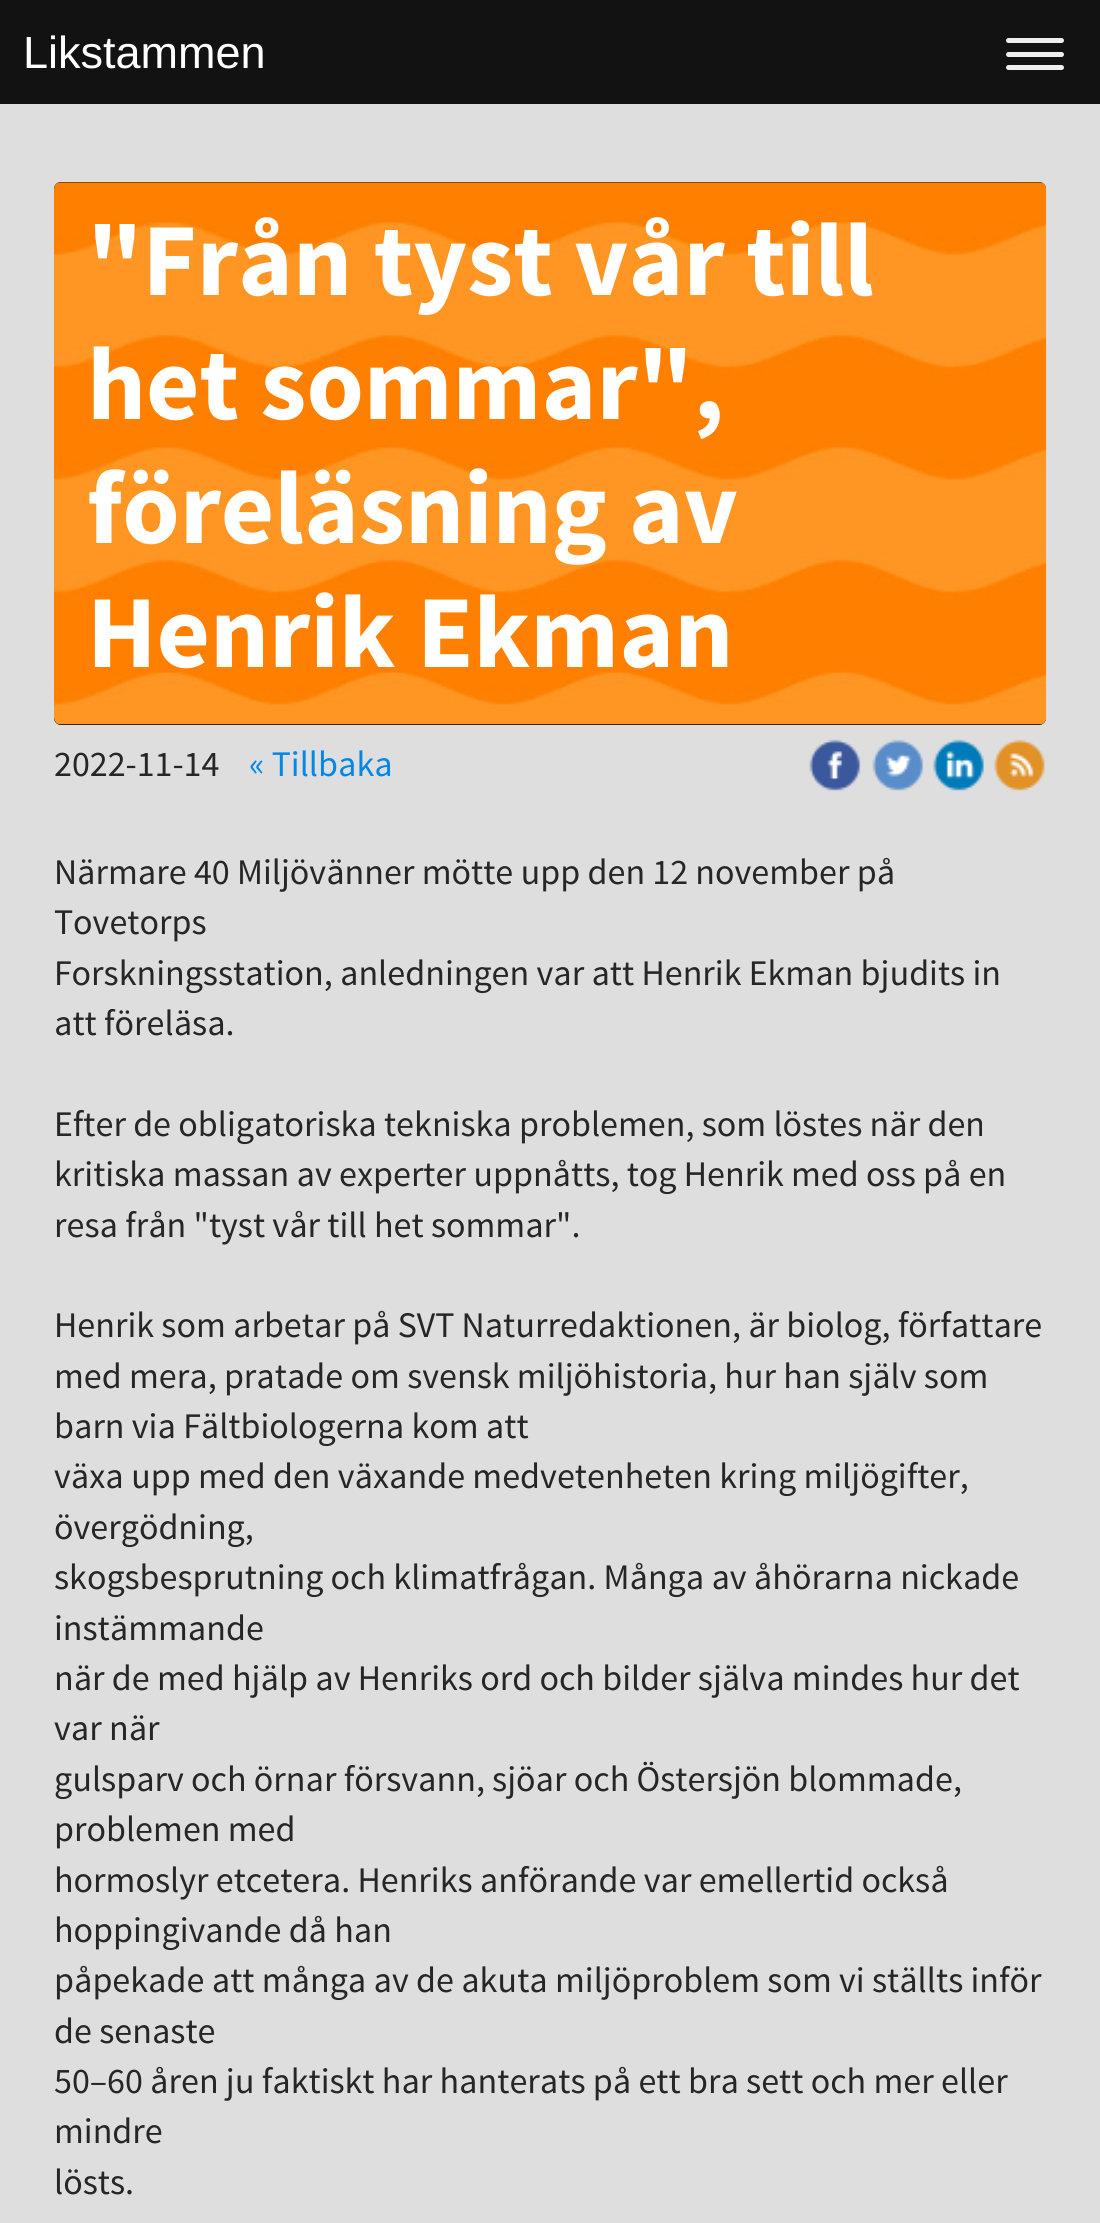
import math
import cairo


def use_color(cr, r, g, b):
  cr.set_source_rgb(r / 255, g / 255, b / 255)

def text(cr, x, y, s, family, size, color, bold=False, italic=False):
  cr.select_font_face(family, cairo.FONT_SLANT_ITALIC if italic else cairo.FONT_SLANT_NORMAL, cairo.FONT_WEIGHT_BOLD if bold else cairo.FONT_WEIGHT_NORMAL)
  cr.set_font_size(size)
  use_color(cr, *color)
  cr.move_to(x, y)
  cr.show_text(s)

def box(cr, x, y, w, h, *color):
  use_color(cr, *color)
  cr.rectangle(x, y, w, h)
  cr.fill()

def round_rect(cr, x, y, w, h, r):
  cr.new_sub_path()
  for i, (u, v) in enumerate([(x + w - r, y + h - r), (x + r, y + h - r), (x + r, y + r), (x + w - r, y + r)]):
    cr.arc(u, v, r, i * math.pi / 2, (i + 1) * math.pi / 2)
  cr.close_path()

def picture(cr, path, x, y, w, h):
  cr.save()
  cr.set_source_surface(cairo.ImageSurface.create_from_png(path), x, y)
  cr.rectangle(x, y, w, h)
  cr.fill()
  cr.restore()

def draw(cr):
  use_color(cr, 222, 222, 222)
  cr.paint()
  box(cr, 0, 0, 1100, 104, 18, 18, 18)
  use_color(cr, 238, 238, 238)
  round_rect(cr, 1006, 38, 58, 5, 2.5)
  cr.fill()
  round_rect(cr, 1006, 52, 58, 5, 2.5)
  cr.fill()
  round_rect(cr, 1006, 65, 58, 5, 2.5)
  cr.fill()
  use_color(cr, 0, 0, 0)
  round_rect(cr, 54, 182, 992, 543, 7)
  cr.fill()
  picture(cr, "img_01.png", 54, 182, 993, 543)
  picture(cr, "img_02.png", 809, 739, 52, 52)
  picture(cr, "img_03.png", 872, 739, 52, 52)
  picture(cr, "img_04.png", 933, 739, 51, 52)
  picture(cr, "img_05.png", 994, 739, 51, 52)
  text(cr, 23, 68, "Likstammen", "Liberation Sans", 45, (255, 255, 255))
  text(cr, 87, 295, "\"Från tyst vår till", "Source Sans Pro", 103.5, (255, 255, 255), bold=True)
  text(cr, 87, 419, "het sommar\",", "Source Sans Pro", 103.5, (255, 255, 255), bold=True)
  text(cr, 87, 543, "föreläsning av", "Source Sans Pro", 103.5, (255, 255, 255), bold=True)
  text(cr, 87, 667, "Henrik Ekman", "Source Sans Pro", 103.5, (255, 255, 255), bold=True)
  text(cr, 54, 776, "2022-11-14", "Source Sans Pro", 36, (38, 38, 38))
  text(cr, 249, 776, "« Tillbaka", "Source Sans Pro", 36, (0, 135, 232))
  text(cr, 54, 884, "Närmare 40 Miljövänner mötte upp den 12 november på", "Source Sans Pro", 36, (38, 38, 38))
  text(cr, 54, 934, "Tovetorps", "Source Sans Pro", 36, (38, 38, 38))
  text(cr, 54, 985, "Forskningsstation, anledningen var att Henrik Ekman bjudits in", "Source Sans Pro", 36, (38, 38, 38))
  text(cr, 54, 1035, "att föreläsa.", "Source Sans Pro", 36, (38, 38, 38))
  text(cr, 54, 1136, "Efter de obligatoriska tekniska problemen, som löstes när den", "Source Sans Pro", 36, (38, 38, 38))
  text(cr, 54, 1186, "kritiska massan av experter uppnåtts, tog Henrik med oss på en", "Source Sans Pro", 36, (38, 38, 38))
  text(cr, 54, 1237, "resa från \"tyst vår till het sommar\".", "Source Sans Pro", 36, (38, 38, 38))
  text(cr, 54, 1337, "Henrik som arbetar på SVT Naturredaktionen, är biolog, författare", "Source Sans Pro", 36, (38, 38, 38))
  text(cr, 54, 1388, "med mera, pratade om svensk miljöhistoria, hur han själv som", "Source Sans Pro", 36, (38, 38, 38))
  text(cr, 54, 1438, "barn via Fältbiologerna kom att", "Source Sans Pro", 36, (38, 38, 38))
  text(cr, 54, 1488, "växa upp med den växande medvetenheten kring miljögifter,", "Source Sans Pro", 36, (38, 38, 38))
  text(cr, 54, 1539, "övergödning,", "Source Sans Pro", 36, (38, 38, 38))
  text(cr, 54, 1589, "skogsbesprutning och klimatfrågan. Många av åhörarna nickade", "Source Sans Pro", 36, (38, 38, 38))
  text(cr, 54, 1640, "instämmande", "Source Sans Pro", 36, (38, 38, 38))
  text(cr, 54, 1690, "när de med hjälp av Henriks ord och bilder själva mindes hur det", "Source Sans Pro", 36, (38, 38, 38))
  text(cr, 54, 1740, "var när", "Source Sans Pro", 36, (38, 38, 38))
  text(cr, 54, 1791, "gulsparv och örnar försvann, sjöar och Östersjön blommade,", "Source Sans Pro", 36, (38, 38, 38))
  text(cr, 54, 1841, "problemen med", "Source Sans Pro", 36, (38, 38, 38))
  text(cr, 54, 1892, "hormoslyr etcetera. Henriks anförande var emellertid också", "Source Sans Pro", 36, (38, 38, 38))
  text(cr, 54, 1942, "hoppingivande då han", "Source Sans Pro", 36, (38, 38, 38))
  text(cr, 54, 1992, "påpekade att många av de akuta miljöproblem som vi ställts inför", "Source Sans Pro", 36, (38, 38, 38))
  text(cr, 54, 2043, "de senaste", "Source Sans Pro", 36, (38, 38, 38))
  text(cr, 54, 2093, "50–60 åren ju faktiskt har hanterats på ett bra sett och mer eller", "Source Sans Pro", 36, (38, 38, 38))
  text(cr, 54, 2143, "mindre", "Source Sans Pro", 36, (38, 38, 38))
  text(cr, 54, 2194, "lösts.", "Source Sans Pro", 36, (38, 38, 38))


surface = cairo.ImageSurface(cairo.FORMAT_RGB24, 1100, 2223)
cr = cairo.Context(surface)
options = cairo.FontOptions()
options.set_hint_metrics(cairo.HINT_METRICS_OFF)
options.set_hint_style(cairo.HINT_STYLE_NONE)
cr.set_font_options(options)
cr.set_miter_limit(4)
draw(cr)
surface.write_to_png("out.png")
